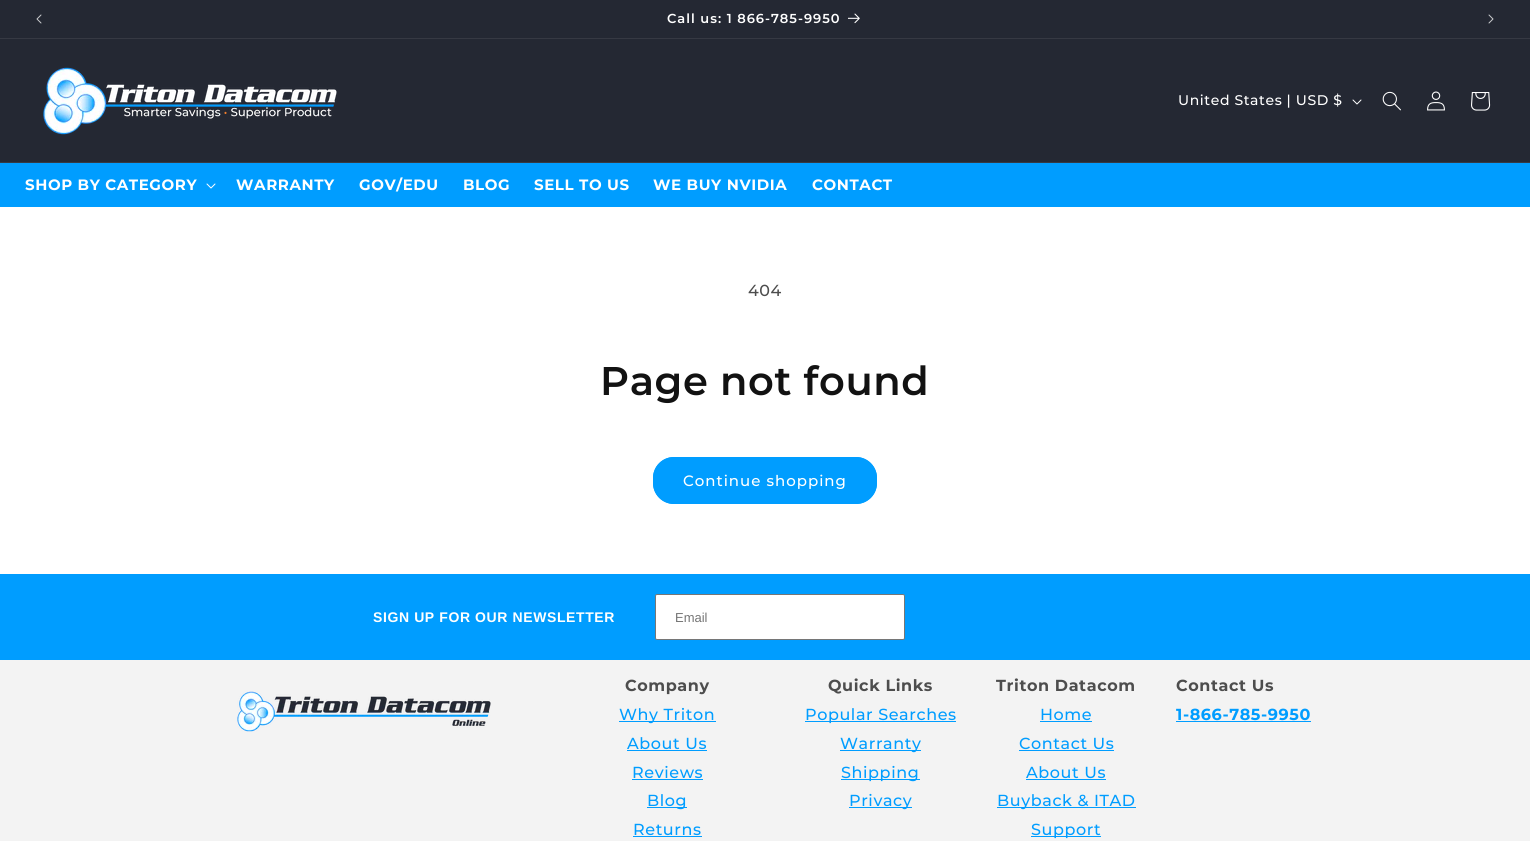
import math
import cairo


def use_color(cr, r, g, b):
  cr.set_source_rgb(r / 255, g / 255, b / 255)

def text(cr, x, y, s, family, size, color, bold=False, italic=False):
  cr.select_font_face(family, cairo.FONT_SLANT_ITALIC if italic else cairo.FONT_SLANT_NORMAL, cairo.FONT_WEIGHT_BOLD if bold else cairo.FONT_WEIGHT_NORMAL)
  cr.set_font_size(size)
  use_color(cr, *color)
  cr.move_to(x, y)
  cr.show_text(s)

def spaced_text(cr, x, y, s, letter, word):
  cr.move_to(x, y)
  for ch in s:
    cr.show_text(ch)
    cr.rel_move_to(letter + word * (ch == ' '), 0)

def box(cr, x, y, w, h, *color):
  use_color(cr, *color)
  cr.rectangle(x, y, w, h)
  cr.fill()

def round_rect(cr, x, y, w, h, r):
  cr.new_sub_path()
  for i, (u, v) in enumerate([(x + w - r, y + h - r), (x + r, y + h - r), (x + r, y + r), (x + w - r, y + r)]):
    cr.arc(u, v, r, i * math.pi / 2, (i + 1) * math.pi / 2)
  cr.close_path()

def picture(cr, path, x, y, w, h):
  cr.save()
  cr.set_source_surface(cairo.ImageSurface.create_from_png(path), x, y)
  cr.rectangle(x, y, w, h)
  cr.fill()
  cr.restore()

def draw(cr):
  use_color(cr, 255, 255, 255)
  cr.paint()
  box(cr, 0, 0, 1530, 38, 36, 40, 51)
  box(cr, 0, 38, 1530, 1, 54, 57, 67)
  picture(cr, "img_01.png", 36, 14, 6, 10)
  picture(cr, "img_02.png", 848, 13, 12, 11)
  picture(cr, "img_03.png", 1488, 14, 6, 10)
  box(cr, 0, 39, 1530, 123, 36, 40, 51)
  box(cr, 0, 162, 1530, 1, 54, 57, 67)
  picture(cr, "img_04.png", 43, 67, 294, 68)
  picture(cr, "img_05.png", 1352, 99, 10, 6)
  picture(cr, "img_06.png", 1382, 91, 19, 20)
  picture(cr, "img_07.png", 1427, 91, 18, 20)
  picture(cr, "img_08.png", 1471, 92, 20, 19)
  box(cr, 0, 163, 1530, 44, 0, 157, 255)
  picture(cr, "img_09.png", 206, 183, 10, 6)
  round_rect(cr, 653, 457, 224, 47, 21)
  cr.fill()
  round_rect(cr, 653.5, 457.5, 223, 46, 20.5)
  cr.set_line_width(1)
  cr.stroke()
  box(cr, 0, 574, 1530, 86, 0, 157, 255)
  use_color(cr, 255, 255, 255)
  round_rect(cr, 655.5, 594.5, 249, 45, 1.5)
  cr.fill_preserve()
  use_color(cr, 118, 118, 118)
  cr.stroke()
  box(cr, 0, 660, 1530, 181, 243, 243, 243)
  picture(cr, "img_10.png", 237, 691, 254, 41)
  box(cr, 619, 721, 97, 1, 0, 157, 255)
  box(cr, 627, 750, 80, 1, 0, 157, 255)
  box(cr, 632, 779, 71, 1, 0, 157, 255)
  box(cr, 647, 807, 40, 1, 0, 157, 255)
  box(cr, 633, 836, 69, 1, 0, 157, 255)
  box(cr, 805, 721, 151, 1, 0, 157, 255)
  box(cr, 840, 750, 81, 1, 0, 157, 255)
  box(cr, 841, 779, 79, 1, 0, 157, 255)
  box(cr, 849, 807, 63, 1, 0, 157, 255)
  box(cr, 1040, 721, 52, 1, 0, 157, 255)
  box(cr, 1019, 750, 95, 1, 0, 157, 255)
  box(cr, 1026, 779, 80, 1, 0, 157, 255)
  box(cr, 997, 807, 139, 1, 0, 157, 255)
  box(cr, 1031, 836, 70, 1, 0, 157, 255)
  box(cr, 1176, 721, 135, 1, 0, 157, 255)
  cr.select_font_face("Montserrat SemiBold")
  cr.set_font_size(13)
  use_color(cr, 255, 255, 255)
  spaced_text(cr, 667, 23, "Call us: 1 866-785-9950", 1, 0)
  cr.select_font_face("Montserrat Medium")
  cr.set_font_size(14)
  spaced_text(cr, 1178, 105, "United States | USD $", 0.6, 0)
  cr.select_font_face("Montserrat", cairo.FONT_SLANT_NORMAL, cairo.FONT_WEIGHT_BOLD)
  cr.set_font_size(15)
  spaced_text(cr, 25, 190, "SHOP BY CATEGORY", 0.6, 0)
  spaced_text(cr, 236, 190, "WARRANTY", 0.6, 0)
  spaced_text(cr, 359, 190, "GOV/EDU", 0.6, 0)
  spaced_text(cr, 463, 190, "BLOG", 0.6, 0)
  spaced_text(cr, 534, 190, "SELL TO US", 0.6, 0)
  spaced_text(cr, 653, 190, "WE BUY NVIDIA", 0.6, 0)
  spaced_text(cr, 812, 190, "CONTACT", 0.6, 0)
  cr.select_font_face("Montserrat Medium")
  cr.set_font_size(16)
  use_color(cr, 77, 77, 77)
  spaced_text(cr, 748, 296, "404", 0.6, 0)
  cr.select_font_face("Montserrat SemiBold")
  cr.set_font_size(40)
  use_color(cr, 18, 18, 18)
  spaced_text(cr, 600, 395, "Page not found", 0.6, 0)
  cr.select_font_face("Montserrat Medium")
  cr.set_font_size(15)
  use_color(cr, 255, 255, 255)
  spaced_text(cr, 683, 486, "Continue shopping", 1, 0)
  cr.select_font_face("Liberation Sans", cairo.FONT_SLANT_NORMAL, cairo.FONT_WEIGHT_BOLD)
  cr.set_font_size(14)
  spaced_text(cr, 373, 622, "SIGN UP FOR OUR NEWSLETTER", 0.6, 0)
  text(cr, 675, 622, "Email", "Liberation Sans", 13, (117, 117, 117))
  cr.select_font_face("Montserrat", cairo.FONT_SLANT_NORMAL, cairo.FONT_WEIGHT_BOLD)
  cr.set_font_size(16)
  use_color(cr, 77, 77, 77)
  spaced_text(cr, 625, 691, "Company", 0.6, 0)
  cr.select_font_face("Montserrat Medium")
  use_color(cr, 0, 157, 255)
  spaced_text(cr, 619, 720, "Why Triton", 0.6, 0)
  spaced_text(cr, 627, 749, "About Us", 0.6, 0)
  spaced_text(cr, 632, 778, "Reviews", 0.6, 0)
  spaced_text(cr, 647, 806, "Blog", 0.6, 0)
  spaced_text(cr, 633, 835, "Returns", 0.6, 0)
  cr.select_font_face("Montserrat", cairo.FONT_SLANT_NORMAL, cairo.FONT_WEIGHT_BOLD)
  use_color(cr, 77, 77, 77)
  spaced_text(cr, 828, 691, "Quick Links", 0.6, 0)
  cr.select_font_face("Montserrat Medium")
  use_color(cr, 0, 157, 255)
  spaced_text(cr, 805, 720, "Popular Searches", 0.6, 0)
  spaced_text(cr, 840, 749, "Warranty", 0.6, 0)
  spaced_text(cr, 841, 778, "Shipping", 0.6, 0)
  spaced_text(cr, 849, 806, "Privacy", 0.6, 0)
  cr.select_font_face("Montserrat", cairo.FONT_SLANT_NORMAL, cairo.FONT_WEIGHT_BOLD)
  use_color(cr, 77, 77, 77)
  spaced_text(cr, 996, 691, "Triton Datacom", 0.6, 0)
  cr.select_font_face("Montserrat Medium")
  use_color(cr, 0, 157, 255)
  spaced_text(cr, 1040, 720, "Home", 0.6, 0)
  spaced_text(cr, 1019, 749, "Contact Us", 0.6, 0)
  spaced_text(cr, 1026, 778, "About Us", 0.6, 0)
  spaced_text(cr, 997, 806, "Buyback & ITAD", 0.6, 0)
  spaced_text(cr, 1031, 835, "Support", 0.6, 0)
  cr.select_font_face("Montserrat", cairo.FONT_SLANT_NORMAL, cairo.FONT_WEIGHT_BOLD)
  use_color(cr, 77, 77, 77)
  spaced_text(cr, 1176, 691, "Contact Us", 0.6, 0)
  use_color(cr, 0, 157, 255)
  spaced_text(cr, 1176, 720, "1-866-785-9950", 0.6, 0)


surface = cairo.ImageSurface(cairo.FORMAT_RGB24, 1530, 841)
cr = cairo.Context(surface)
options = cairo.FontOptions()
options.set_hint_metrics(cairo.HINT_METRICS_OFF)
options.set_hint_style(cairo.HINT_STYLE_NONE)
cr.set_font_options(options)
cr.set_miter_limit(4)
draw(cr)
surface.write_to_png("out.png")
